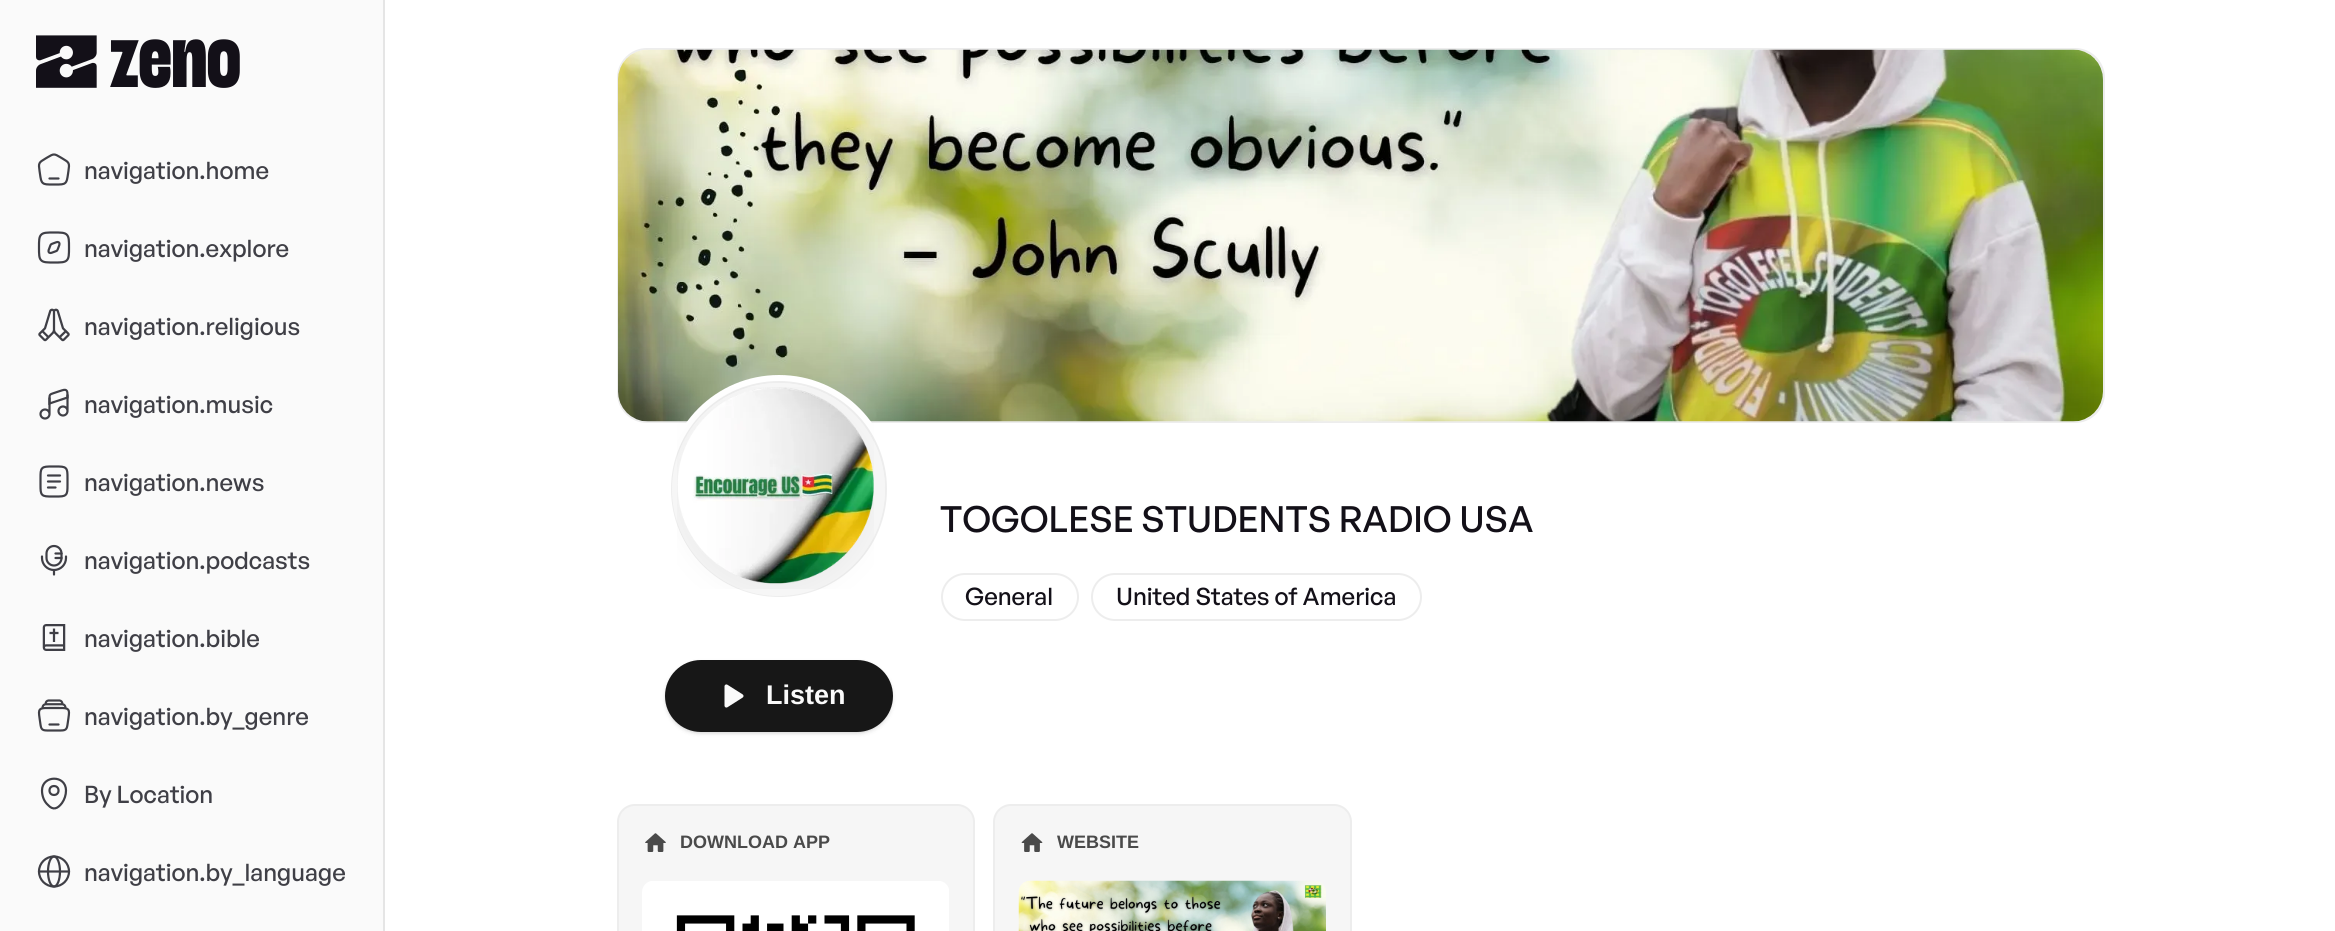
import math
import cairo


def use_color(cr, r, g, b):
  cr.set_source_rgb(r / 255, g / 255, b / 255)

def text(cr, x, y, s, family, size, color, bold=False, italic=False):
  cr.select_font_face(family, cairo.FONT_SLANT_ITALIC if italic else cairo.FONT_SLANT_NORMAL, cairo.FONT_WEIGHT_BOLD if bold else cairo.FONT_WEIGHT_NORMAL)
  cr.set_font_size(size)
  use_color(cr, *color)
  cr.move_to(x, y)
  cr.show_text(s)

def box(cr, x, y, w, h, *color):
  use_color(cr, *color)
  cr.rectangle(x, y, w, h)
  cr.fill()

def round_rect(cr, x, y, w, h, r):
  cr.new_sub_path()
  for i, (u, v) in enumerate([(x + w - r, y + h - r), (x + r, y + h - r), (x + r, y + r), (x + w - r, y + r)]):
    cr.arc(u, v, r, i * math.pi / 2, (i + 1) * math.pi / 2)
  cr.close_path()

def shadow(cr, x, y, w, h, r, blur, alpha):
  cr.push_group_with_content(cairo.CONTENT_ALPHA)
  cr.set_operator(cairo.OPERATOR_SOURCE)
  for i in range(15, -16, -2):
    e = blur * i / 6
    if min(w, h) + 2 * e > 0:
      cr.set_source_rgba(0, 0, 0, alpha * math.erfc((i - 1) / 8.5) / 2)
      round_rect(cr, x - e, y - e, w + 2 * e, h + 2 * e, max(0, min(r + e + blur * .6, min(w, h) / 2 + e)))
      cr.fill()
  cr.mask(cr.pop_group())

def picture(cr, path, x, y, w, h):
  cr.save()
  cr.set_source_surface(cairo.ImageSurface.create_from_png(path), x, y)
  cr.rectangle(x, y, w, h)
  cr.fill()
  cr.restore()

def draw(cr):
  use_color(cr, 255, 255, 255)
  cr.paint()
  box(cr, 383, 0, 2, 931, 229, 229, 229)
  box(cr, 0, 0, 383, 931, 250, 250, 250)
  picture(cr, "img_01.png", 36, 35, 61, 53)
  picture(cr, "img_02.png", 37, 153, 34, 33)
  picture(cr, "img_03.png", 37, 231, 34, 33)
  picture(cr, "img_04.png", 38, 308, 32, 34)
  picture(cr, "img_05.png", 39, 388, 30, 32)
  picture(cr, "img_06.png", 39, 465, 30, 33)
  picture(cr, "img_07.png", 40, 544, 28, 32)
  picture(cr, "img_08.png", 42, 624, 24, 27)
  picture(cr, "img_09.png", 37, 699, 34, 33)
  cr.new_path()
  cr.move_to(42, 790.5)
  cr.curve_to(42, 775, 66, 774.5, 66, 790.5)
  cr.curve_to(66, 795, 64.5, 799.5, 62, 803)
  cr.curve_to(57.5, 809, 53, 810.5, 48, 805)
  cr.curve_to(44, 801.5, 42, 796, 42, 790.5)
  cr.close_path()
  use_color(cr, 63, 63, 70)
  cr.set_line_width(2.2)
  cr.stroke()
  cr.arc(54, 790.5, 4.5, 0, 2 * math.pi)
  cr.stroke()
  picture(cr, "img_10.png", 37, 855, 34, 33)
  use_color(cr, 246, 246, 246)
  round_rect(cr, 618, 49, 1486, 373, 29)
  cr.fill_preserve()
  use_color(cr, 237, 237, 237)
  cr.set_line_width(2)
  cr.stroke()
  picture(cr, "img_11.png", 618, 49, 1485, 373)
  round_rect(cr, 942, 574, 136, 46, 23)
  cr.stroke()
  round_rect(cr, 1092, 574, 329, 46, 23)
  cr.stroke()
  use_color(cr, 255, 255, 255)
  cr.arc(779, 489, 114, 0, 2 * math.pi)
  cr.fill()
  use_color(cr, 246, 246, 246)
  cr.arc(779, 489, 107, 0, 2 * math.pi)
  cr.fill_preserve()
  use_color(cr, 237, 237, 237)
  cr.stroke()
  use_color(cr, 246, 246, 246)
  cr.arc(778.5, 489.5, 106.5, 0, 2 * math.pi)
  cr.fill()
  picture(cr, "img_12.png", 677, 387, 197, 202)
  use_color(cr, 0, 0, 0)
  shadow(cr, 666, 663, 225, 69, 34.5, 1.5, 0.1)
  shadow(cr, 665, 662, 228, 72, 36, 2, 0.1)
  use_color(cr, 23, 23, 23)
  round_rect(cr, 665, 660, 228, 72, 36)
  cr.fill()
  picture(cr, "img_13.png", 724, 684, 20, 24)
  use_color(cr, 246, 246, 246)
  round_rect(cr, 618, 805, 356, 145, 17)
  cr.fill_preserve()
  use_color(cr, 237, 237, 237)
  cr.stroke()
  picture(cr, "img_14.png", 645, 833, 21, 19)
  picture(cr, "img_15.png", 642, 881, 307, 50)
  use_color(cr, 246, 246, 246)
  round_rect(cr, 994, 805, 357, 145, 17)
  cr.fill_preserve()
  use_color(cr, 237, 237, 237)
  cr.stroke()
  picture(cr, "img_16.png", 1021, 833, 22, 19)
  picture(cr, "img_17.png", 1018, 880, 308, 51)
  text(cr, 110, 87, "zeno", "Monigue", 90, (19, 16, 24))
  text(cr, 84, 179, "navigation.home", "General Sans Medium", 24, (63, 63, 70))
  text(cr, 84, 257, "navigation.explore", "General Sans Medium", 24, (63, 63, 70))
  text(cr, 84, 335, "navigation.religious", "General Sans Medium", 24, (63, 63, 70))
  text(cr, 84, 413, "navigation.music", "General Sans Medium", 24, (63, 63, 70))
  text(cr, 84, 491, "navigation.news", "General Sans Medium", 24, (63, 63, 70))
  text(cr, 84, 569, "navigation.podcasts", "General Sans Medium", 24, (63, 63, 70))
  text(cr, 84, 647, "navigation.bible", "General Sans Medium", 24, (63, 63, 70))
  text(cr, 84, 725, "navigation.by_genre", "General Sans Medium", 24, (63, 63, 70))
  text(cr, 84, 803, "By Location", "General Sans Medium", 24, (63, 63, 70))
  text(cr, 84, 881, "navigation.by_language", "General Sans Medium", 24, (63, 63, 70))
  text(cr, 940, 532, "TOGOLESE STUDENTS RADIO USA", "General Sans Medium", 36, (19, 16, 24))
  text(cr, 965, 605, "General", "General Sans Medium", 24, (19, 16, 24))
  text(cr, 1116, 605, "United States of America", "General Sans Medium", 24, (19, 16, 24))
  text(cr, 766, 704, "Listen", "Liberation Sans", 27, (250, 250, 250), bold=True)
  text(cr, 680, 848, "DOWNLOAD APP", "Liberation Sans", 18, (74, 74, 74), bold=True)
  text(cr, 1057, 848, "WEBSITE", "Liberation Sans", 18, (74, 74, 74), bold=True)


surface = cairo.ImageSurface(cairo.FORMAT_RGB24, 2335, 931)
cr = cairo.Context(surface)
options = cairo.FontOptions()
options.set_hint_metrics(cairo.HINT_METRICS_OFF)
options.set_hint_style(cairo.HINT_STYLE_NONE)
cr.set_font_options(options)
cr.set_miter_limit(4)
draw(cr)
surface.write_to_png("out.png")
